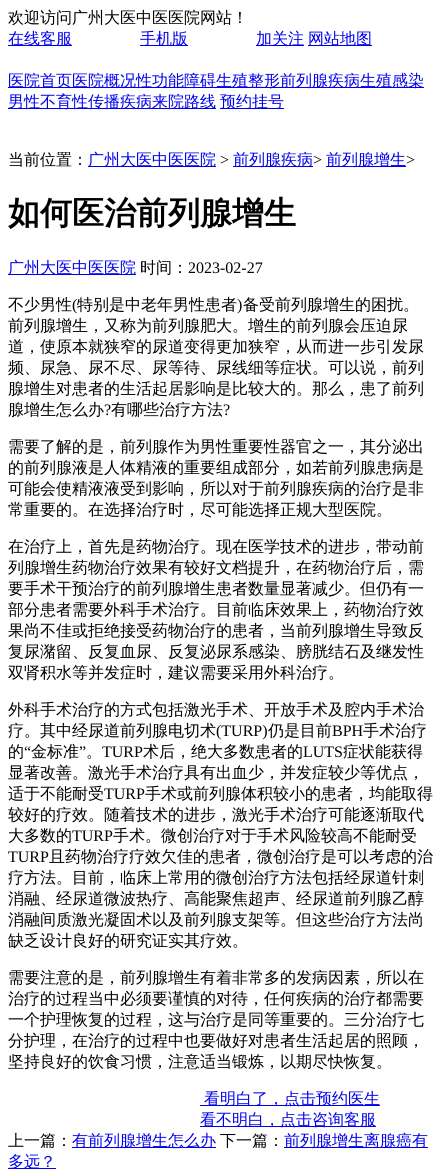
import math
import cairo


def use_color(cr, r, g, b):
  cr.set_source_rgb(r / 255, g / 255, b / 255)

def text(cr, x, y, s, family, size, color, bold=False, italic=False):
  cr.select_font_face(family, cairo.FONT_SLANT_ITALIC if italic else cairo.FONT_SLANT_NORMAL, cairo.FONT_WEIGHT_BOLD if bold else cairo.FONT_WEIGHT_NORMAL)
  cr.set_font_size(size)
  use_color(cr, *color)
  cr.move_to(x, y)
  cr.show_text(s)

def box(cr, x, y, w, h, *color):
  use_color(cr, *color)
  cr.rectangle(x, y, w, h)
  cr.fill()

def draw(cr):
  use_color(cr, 255, 255, 255)
  cr.paint()
  box(cr, 8, 45, 64, 1, 0, 0, 238)
  box(cr, 140, 45, 48, 1, 0, 0, 238)
  box(cr, 256, 45, 48, 1, 0, 0, 238)
  box(cr, 308, 45, 64, 1, 0, 0, 238)
  box(cr, 8, 87, 416, 1, 0, 0, 238)
  box(cr, 8, 108, 208, 1, 0, 0, 238)
  box(cr, 220, 108, 64, 1, 0, 0, 238)
  box(cr, 88, 166, 128, 1, 0, 0, 238)
  box(cr, 233, 166, 80, 1, 0, 0, 238)
  box(cr, 326, 166, 80, 1, 0, 0, 238)
  box(cr, 8, 274, 128, 1, 0, 0, 238)
  box(cr, 200, 1105, 180, 1, 0, 0, 238)
  box(cr, 200, 1126, 176, 1, 0, 0, 238)
  box(cr, 72, 1147, 144, 1, 0, 0, 238)
  box(cr, 284, 1147, 144, 1, 0, 0, 238)
  box(cr, 8, 1168, 48, 1, 0, 0, 238)
  text(cr, 8, 23, "欢迎访问广州大医中医医院网站！", "WenQuanYi Zen Hei Medium", 16, (0, 0, 0))
  text(cr, 8, 44, "在线客服", "WenQuanYi Zen Hei Medium", 16, (0, 0, 238))
  text(cr, 140, 44, "手机版", "WenQuanYi Zen Hei Medium", 16, (0, 0, 238))
  text(cr, 256, 44, "加关注", "WenQuanYi Zen Hei Medium", 16, (0, 0, 238))
  text(cr, 308, 44, "网站地图", "WenQuanYi Zen Hei Medium", 16, (0, 0, 238))
  text(cr, 8, 86, "医院首页医院概况性功能障碍生殖整形前列腺疾病生殖感染", "WenQuanYi Zen Hei Medium", 16, (0, 0, 238))
  text(cr, 8, 107, "男性不育性传播疾病来院路线", "WenQuanYi Zen Hei Medium", 16, (0, 0, 238))
  text(cr, 220, 107, "预约挂号", "WenQuanYi Zen Hei Medium", 16, (0, 0, 238))
  text(cr, 8, 165, "当前位置：", "WenQuanYi Zen Hei Medium", 16, (0, 0, 0))
  text(cr, 88, 165, "广州大医中医医院", "WenQuanYi Zen Hei Medium", 16, (0, 0, 238))
  text(cr, 220, 165, ">", "Liberation Serif", 16, (0, 0, 0))
  text(cr, 233, 165, "前列腺疾病", "WenQuanYi Zen Hei Medium", 16, (0, 0, 238))
  text(cr, 313, 165, ">", "Liberation Serif", 16, (0, 0, 0))
  text(cr, 326, 165, "前列腺增生", "WenQuanYi Zen Hei Medium", 16, (0, 0, 238))
  text(cr, 406, 165, ">", "Liberation Serif", 16, (0, 0, 0))
  text(cr, 8, 224, "如何医治前列腺增生", "WenQuanYi Zen Hei", 32, (0, 0, 0), bold=True)
  text(cr, 8, 273, "广州大医中医医院", "WenQuanYi Zen Hei Medium", 16, (0, 0, 238))
  text(cr, 140, 273, "时间：", "WenQuanYi Zen Hei Medium", 16, (0, 0, 0))
  text(cr, 188, 273, "2023-02-27", "Liberation Serif", 16, (0, 0, 0))
  text(cr, 8, 310, "不少男性", "WenQuanYi Zen Hei Medium", 16, (0, 0, 0))
  text(cr, 72, 310, "(", "Liberation Serif", 16, (0, 0, 0))
  text(cr, 77, 310, "特别是中老年男性患者", "WenQuanYi Zen Hei Medium", 16, (0, 0, 0))
  text(cr, 237, 310, ")", "Liberation Serif", 16, (0, 0, 0))
  text(cr, 243, 310, "备受前列腺增生的困扰。", "WenQuanYi Zen Hei Medium", 16, (0, 0, 0))
  text(cr, 8, 331, "前列腺增生，又称为前列腺肥大。增生的前列腺会压迫尿", "WenQuanYi Zen Hei Medium", 16, (0, 0, 0))
  text(cr, 8, 352, "道，使原本就狭窄的尿道变得更加狭窄，从而进一步引发尿", "WenQuanYi Zen Hei Medium", 16, (0, 0, 0))
  text(cr, 8, 373, "频、尿急、尿不尽、尿等待、尿线细等症状。可以说，前列", "WenQuanYi Zen Hei Medium", 16, (0, 0, 0))
  text(cr, 8, 394, "腺增生对患者的生活起居影响是比较大的。那么，患了前列", "WenQuanYi Zen Hei Medium", 16, (0, 0, 0))
  text(cr, 8, 415, "腺增生怎么办", "WenQuanYi Zen Hei Medium", 16, (0, 0, 0))
  text(cr, 104, 415, "?", "Liberation Serif", 16, (0, 0, 0))
  text(cr, 111, 415, "有哪些治疗方法", "WenQuanYi Zen Hei Medium", 16, (0, 0, 0))
  text(cr, 223, 415, "?", "Liberation Serif", 16, (0, 0, 0))
  text(cr, 8, 452, "需要了解的是，前列腺作为男性重要性器官之一，其分泌出", "WenQuanYi Zen Hei Medium", 16, (0, 0, 0))
  text(cr, 8, 473, "的前列腺液是人体精液的重要组成部分，如若前列腺患病是", "WenQuanYi Zen Hei Medium", 16, (0, 0, 0))
  text(cr, 8, 494, "可能会使精液液受到影响，所以对于前列腺疾病的治疗是非", "WenQuanYi Zen Hei Medium", 16, (0, 0, 0))
  text(cr, 8, 515, "常重要的。在选择治疗时，尽可能选择正规大型医院。", "WenQuanYi Zen Hei Medium", 16, (0, 0, 0))
  text(cr, 8, 552, "在治疗上，首先是药物治疗。现在医学技术的进步，带动前", "WenQuanYi Zen Hei Medium", 16, (0, 0, 0))
  text(cr, 8, 573, "列腺增生药物治疗效果有较好文档提升，在药物治疗后，需", "WenQuanYi Zen Hei Medium", 16, (0, 0, 0))
  text(cr, 8, 594, "要手术干预治疗的前列腺增生患者数量显著减少。但仍有一", "WenQuanYi Zen Hei Medium", 16, (0, 0, 0))
  text(cr, 8, 615, "部分患者需要外科手术治疗。目前临床效果上，药物治疗效", "WenQuanYi Zen Hei Medium", 16, (0, 0, 0))
  text(cr, 8, 636, "果尚不佳或拒绝接受药物治疗的患者，当前列腺增生导致反", "WenQuanYi Zen Hei Medium", 16, (0, 0, 0))
  text(cr, 8, 657, "复尿潴留、反复血尿、反复泌尿系感染、膀胱结石及继发性", "WenQuanYi Zen Hei Medium", 16, (0, 0, 0))
  text(cr, 8, 678, "双肾积水等并发症时，建议需要采用外科治疗。", "WenQuanYi Zen Hei Medium", 16, (0, 0, 0))
  text(cr, 8, 715, "外科手术治疗的方式包括激光手术、开放手术及腔内手术治", "WenQuanYi Zen Hei Medium", 16, (0, 0, 0))
  text(cr, 8, 736, "疗。其中经尿道前列腺电切术", "WenQuanYi Zen Hei Medium", 16, (0, 0, 0))
  text(cr, 216, 736, "(TURP)", "Liberation Serif", 16, (0, 0, 0))
  text(cr, 268, 736, "仍是目前", "WenQuanYi Zen Hei Medium", 16, (0, 0, 0))
  text(cr, 332, 736, "BPH", "Liberation Serif", 16, (0, 0, 0))
  text(cr, 363, 736, "手术治疗", "WenQuanYi Zen Hei Medium", 16, (0, 0, 0))
  text(cr, 8, 757, "的", "WenQuanYi Zen Hei Medium", 16, (0, 0, 0))
  text(cr, 24, 757, "“", "Liberation Serif", 16, (0, 0, 0))
  text(cr, 31, 757, "金标准", "WenQuanYi Zen Hei Medium", 16, (0, 0, 0))
  text(cr, 79, 757, "”", "Liberation Serif", 16, (0, 0, 0))
  text(cr, 86, 757, "。", "WenQuanYi Zen Hei Medium", 16, (0, 0, 0))
  text(cr, 102, 757, "TURP", "Liberation Serif", 16, (0, 0, 0))
  text(cr, 143, 757, "术后，绝大多数患者的", "WenQuanYi Zen Hei Medium", 16, (0, 0, 0))
  text(cr, 303, 757, "LUTS", "Liberation Serif", 16, (0, 0, 0))
  text(cr, 343, 757, "症状能获得", "WenQuanYi Zen Hei Medium", 16, (0, 0, 0))
  text(cr, 8, 778, "显著改善。激光手术治疗具有出血少，并发症较少等优点，", "WenQuanYi Zen Hei Medium", 16, (0, 0, 0))
  text(cr, 8, 799, "适于不能耐受", "WenQuanYi Zen Hei Medium", 16, (0, 0, 0))
  text(cr, 104, 799, "TURP", "Liberation Serif", 16, (0, 0, 0))
  text(cr, 145, 799, "手术或前列腺体积较小的患者，均能取得", "WenQuanYi Zen Hei Medium", 16, (0, 0, 0))
  text(cr, 8, 820, "较好的疗效。随着技术的进步，激光手术治疗可能逐渐取代", "WenQuanYi Zen Hei Medium", 16, (0, 0, 0))
  text(cr, 8, 841, "大多数的", "WenQuanYi Zen Hei Medium", 16, (0, 0, 0))
  text(cr, 72, 841, "TURP", "Liberation Serif", 16, (0, 0, 0))
  text(cr, 113, 841, "手术。微创治疗对于手术风险较高不能耐受", "WenQuanYi Zen Hei Medium", 16, (0, 0, 0))
  text(cr, 8, 862, "TURP", "Liberation Serif", 16, (0, 0, 0))
  text(cr, 49, 862, "且药物治疗疗效欠佳的患者，微创治疗是可以考虑的治", "WenQuanYi Zen Hei Medium", 16, (0, 0, 0))
  text(cr, 8, 883, "疗方法。目前，临床上常用的微创治疗方法包括经尿道针刺", "WenQuanYi Zen Hei Medium", 16, (0, 0, 0))
  text(cr, 8, 904, "消融、经尿道微波热疗、高能聚焦超声、经尿道前列腺乙醇", "WenQuanYi Zen Hei Medium", 16, (0, 0, 0))
  text(cr, 8, 925, "消融间质激光凝固术以及前列腺支架等。但这些治疗方法尚", "WenQuanYi Zen Hei Medium", 16, (0, 0, 0))
  text(cr, 8, 946, "缺乏设计良好的研究证实其疗效。", "WenQuanYi Zen Hei Medium", 16, (0, 0, 0))
  text(cr, 8, 983, "需要注意的是，前列腺增生有着非常多的发病因素，所以在", "WenQuanYi Zen Hei Medium", 16, (0, 0, 0))
  text(cr, 8, 1004, "治疗的过程当中必须要谨慎的对待，任何疾病的治疗都需要", "WenQuanYi Zen Hei Medium", 16, (0, 0, 0))
  text(cr, 8, 1025, "一个护理恢复的过程，这与治疗是同等重要的。三分治疗七", "WenQuanYi Zen Hei Medium", 16, (0, 0, 0))
  text(cr, 8, 1046, "分护理，在治疗的过程中也要做好对患者生活起居的照顾，", "WenQuanYi Zen Hei Medium", 16, (0, 0, 0))
  text(cr, 8, 1067, "坚持良好的饮食习惯，注意适当锻炼，以期尽快恢复。", "WenQuanYi Zen Hei Medium", 16, (0, 0, 0))
  text(cr, 204, 1104, "看明白了，点击预约医生", "WenQuanYi Zen Hei Medium", 16, (0, 0, 238))
  text(cr, 200, 1125, "看不明白，点击咨询客服", "WenQuanYi Zen Hei Medium", 16, (0, 0, 238))
  text(cr, 8, 1146, "上一篇：", "WenQuanYi Zen Hei Medium", 16, (0, 0, 0))
  text(cr, 72, 1146, "有前列腺增生怎么办", "WenQuanYi Zen Hei Medium", 16, (0, 0, 238))
  text(cr, 220, 1146, "下一篇：", "WenQuanYi Zen Hei Medium", 16, (0, 0, 0))
  text(cr, 284, 1146, "前列腺增生离腺癌有", "WenQuanYi Zen Hei Medium", 16, (0, 0, 238))
  text(cr, 8, 1167, "多远？", "WenQuanYi Zen Hei Medium", 16, (0, 0, 238))


surface = cairo.ImageSurface(cairo.FORMAT_RGB24, 442, 1173)
cr = cairo.Context(surface)
options = cairo.FontOptions()
options.set_hint_metrics(cairo.HINT_METRICS_OFF)
options.set_hint_style(cairo.HINT_STYLE_NONE)
cr.set_font_options(options)
cr.set_miter_limit(4)
draw(cr)
surface.write_to_png("out.png")
